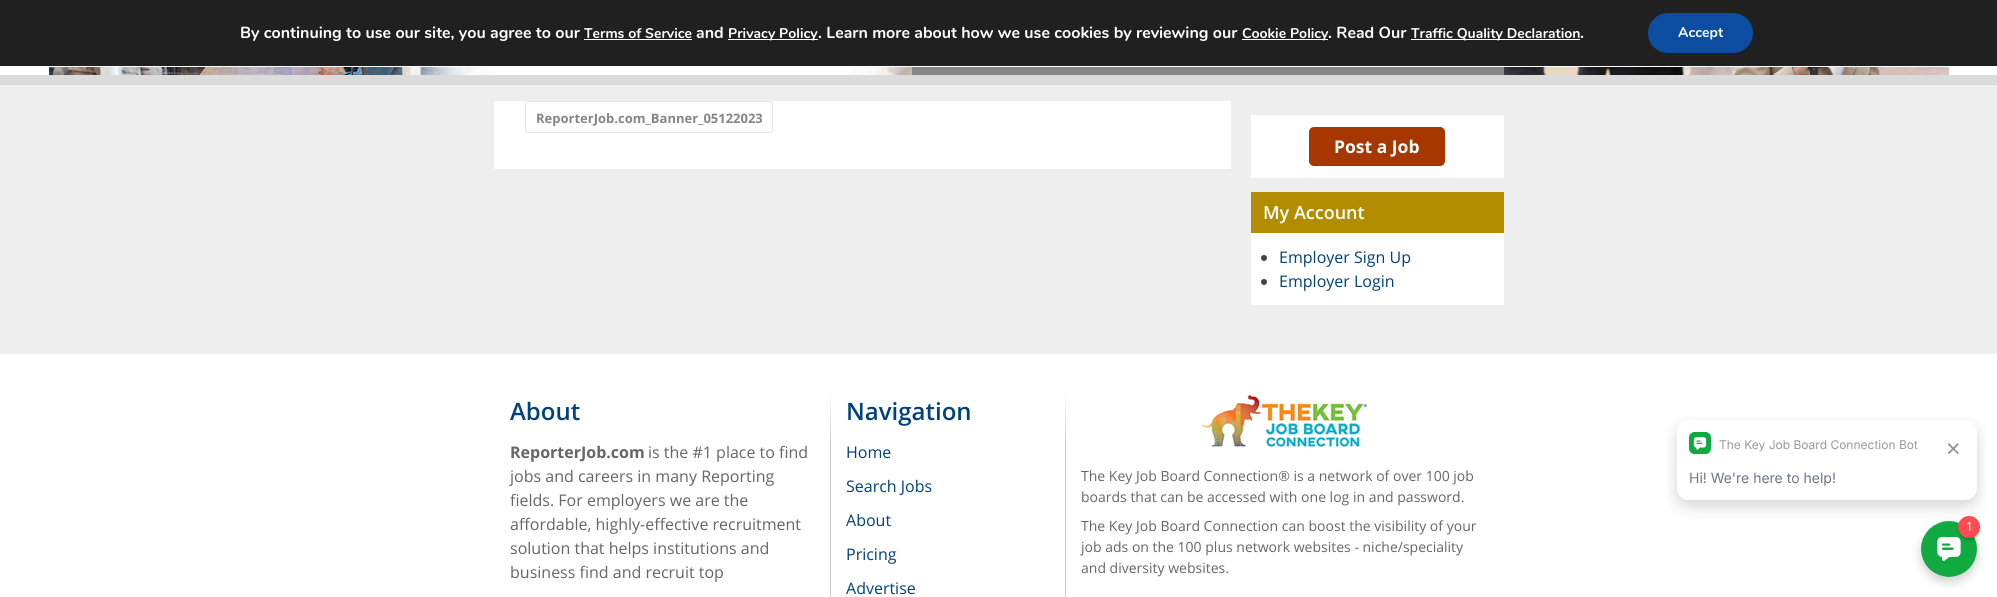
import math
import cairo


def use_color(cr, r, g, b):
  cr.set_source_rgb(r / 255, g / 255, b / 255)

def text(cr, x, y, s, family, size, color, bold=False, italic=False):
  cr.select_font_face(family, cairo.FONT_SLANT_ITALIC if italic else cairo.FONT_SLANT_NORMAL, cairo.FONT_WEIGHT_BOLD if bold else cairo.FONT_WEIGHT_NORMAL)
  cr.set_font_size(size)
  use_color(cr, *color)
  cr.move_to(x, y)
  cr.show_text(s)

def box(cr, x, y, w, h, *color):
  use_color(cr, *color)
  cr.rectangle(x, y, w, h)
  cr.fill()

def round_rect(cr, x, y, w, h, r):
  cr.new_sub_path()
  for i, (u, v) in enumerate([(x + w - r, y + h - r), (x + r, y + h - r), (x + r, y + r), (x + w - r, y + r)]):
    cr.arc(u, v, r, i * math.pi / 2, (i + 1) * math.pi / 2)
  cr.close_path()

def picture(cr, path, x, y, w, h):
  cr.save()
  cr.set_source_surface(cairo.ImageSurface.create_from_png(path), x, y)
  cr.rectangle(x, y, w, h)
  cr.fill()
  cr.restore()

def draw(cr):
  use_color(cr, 255, 255, 255)
  cr.paint()
  box(cr, 0, 0, 1997, 66, 32, 32, 32)
  box(cr, 584, 39, 108, 1, 255, 255, 255)
  box(cr, 728, 39, 90, 1, 255, 255, 255)
  box(cr, 1242, 39, 86, 1, 255, 255, 255)
  box(cr, 1411, 39, 169, 1, 255, 255, 255)
  use_color(cr, 12, 77, 162)
  round_rect(cr, 1648, 13, 105, 40, 20)
  cr.fill()
  picture(cr, "img_01.png", 49, 67, 1900, 8)
  box(cr, 0, 75, 1997, 10, 219, 219, 219)
  box(cr, 912, 67, 592, 8, 135, 135, 135)
  box(cr, 0, 85, 1997, 269, 238, 238, 238)
  box(cr, 494, 101, 737, 68, 255, 255, 255)
  round_rect(cr, 525.5, 101.5, 247, 31, 2.5)
  use_color(cr, 230, 230, 230)
  cr.set_line_width(1)
  cr.stroke()
  box(cr, 1251, 115, 253, 63, 255, 255, 255)
  use_color(cr, 167, 55, 0)
  round_rect(cr, 1309, 127, 136, 39, 5)
  cr.fill()
  box(cr, 1251, 192, 253, 41, 178, 140, 1)
  box(cr, 1251, 233, 253, 72, 255, 255, 255)
  use_color(cr, 68, 68, 68)
  cr.arc(1264, 258, 3, 0, 2 * math.pi)
  cr.fill()
  cr.arc(1264, 282, 3, 0, 2 * math.pi)
  cr.fill()
  gradient = cairo.LinearGradient(831, 394, 831, 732)
  gradient.add_color_stop_rgba(0, 0.98, 0.98, 0.98, 1)
  gradient.add_color_stop_rgba(0.15, 0.792, 0.792, 0.792, 1)
  gradient.add_color_stop_rgba(0.85, 0.792, 0.792, 0.792, 1)
  gradient.add_color_stop_rgba(1, 0.98, 0.98, 0.98, 1)
  cr.set_source(gradient)
  cr.rectangle(830, 394, 1, 203)
  cr.fill()
  gradient = cairo.LinearGradient(1066, 394, 1066, 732)
  gradient.add_color_stop_rgba(0, 0.98, 0.98, 0.98, 1)
  gradient.add_color_stop_rgba(0.15, 0.792, 0.792, 0.792, 1)
  gradient.add_color_stop_rgba(0.85, 0.792, 0.792, 0.792, 1)
  gradient.add_color_stop_rgba(1, 0.98, 0.98, 0.98, 1)
  cr.set_source(gradient)
  cr.rectangle(1065, 394, 1, 203)
  cr.fill()
  picture(cr, "img_02.png", 1202, 395, 165, 52)
  picture(cr, "img_03.png", 1667, 416, 320, 172)
  text(cr, 240, 38, "By continuing to use our site, you agree to our", "Nunito", 16, (255, 255, 255), bold=True)
  text(cr, 584, 38, "Terms of Service", "Nunito", 14, (255, 255, 255), bold=True)
  text(cr, 696, 38, "and", "Nunito", 16, (255, 255, 255), bold=True)
  text(cr, 728, 38, "Privacy Policy", "Nunito", 14, (255, 255, 255), bold=True)
  text(cr, 818, 38, ". Learn more about how we use cookies by reviewing our", "Nunito", 16, (255, 255, 255), bold=True)
  text(cr, 1242, 38, "Cookie Policy", "Nunito", 14, (255, 255, 255), bold=True)
  text(cr, 1328, 38, ". Read Our", "Nunito", 16, (255, 255, 255), bold=True)
  text(cr, 1411, 38, "Traffic Quality Declaration", "Nunito", 14, (255, 255, 255), bold=True)
  text(cr, 1580, 38, ".", "Nunito", 16, (255, 255, 255), bold=True)
  text(cr, 1678, 37, "Accept", "Nunito", 14, (255, 255, 255), bold=True)
  text(cr, 536, 123, "ReporterJob.com_Banner_05122023", "Open Sans", 13, (134, 133, 133), bold=True)
  text(cr, 1334, 153, "Post a Job", "Open Sans", 17.5, (255, 255, 255), bold=True)
  text(cr, 1263, 219, "My Account", "Open Sans SemiBold", 18, (255, 255, 255))
  text(cr, 1279, 263, "Employer Sign Up", "Open Sans", 16, (0, 65, 126))
  text(cr, 1279, 287, "Employer Login", "Open Sans", 16, (0, 65, 126))
  text(cr, 510, 420, "About", "Open Sans SemiBold", 24, (0, 65, 126))
  text(cr, 510, 458, "ReporterJob.com", "Open Sans", 16, (102, 102, 102), bold=True)
  text(cr, 648, 458, "is the #1 place to find", "Open Sans", 16, (102, 102, 102))
  text(cr, 510, 482, "jobs and careers in many Reporting", "Open Sans", 16, (102, 102, 102))
  text(cr, 510, 506, "fields. For employers we are the", "Open Sans", 16, (102, 102, 102))
  text(cr, 510, 530, "affordable, highly-effective recruitment", "Open Sans", 16, (102, 102, 102))
  text(cr, 510, 554, "solution that helps institutions and", "Open Sans", 16, (102, 102, 102))
  text(cr, 510, 578, "business find and recruit top", "Open Sans", 16, (102, 102, 102))
  text(cr, 846, 420, "Navigation", "Open Sans SemiBold", 24, (0, 65, 126))
  text(cr, 846, 458, "Home", "Open Sans", 16, (0, 65, 126))
  text(cr, 846, 492, "Search Jobs", "Open Sans", 16, (0, 65, 126))
  text(cr, 846, 526, "About", "Open Sans", 16, (0, 65, 126))
  text(cr, 846, 560, "Pricing", "Open Sans", 16, (0, 65, 126))
  text(cr, 846, 594, "Advertise", "Open Sans", 16, (0, 65, 126))
  text(cr, 1081, 481, "The Key Job Board Connection® is a network of over 100 job", "Open Sans", 14, (102, 102, 102))
  text(cr, 1081, 502, "boards that can be accessed with one log in and password.", "Open Sans", 14, (102, 102, 102))
  text(cr, 1081, 531, "The Key Job Board Connection can boost the visibility of your", "Open Sans", 14, (102, 102, 102))
  text(cr, 1081, 552, "job ads on the 100 plus network websites - niche/speciality", "Open Sans", 14, (102, 102, 102))
  text(cr, 1081, 573, "and diversity websites.", "Open Sans", 14, (102, 102, 102))


surface = cairo.ImageSurface(cairo.FORMAT_RGB24, 1997, 597)
cr = cairo.Context(surface)
options = cairo.FontOptions()
options.set_hint_metrics(cairo.HINT_METRICS_OFF)
options.set_hint_style(cairo.HINT_STYLE_NONE)
cr.set_font_options(options)
cr.set_miter_limit(4)
draw(cr)
surface.write_to_png("out.png")
